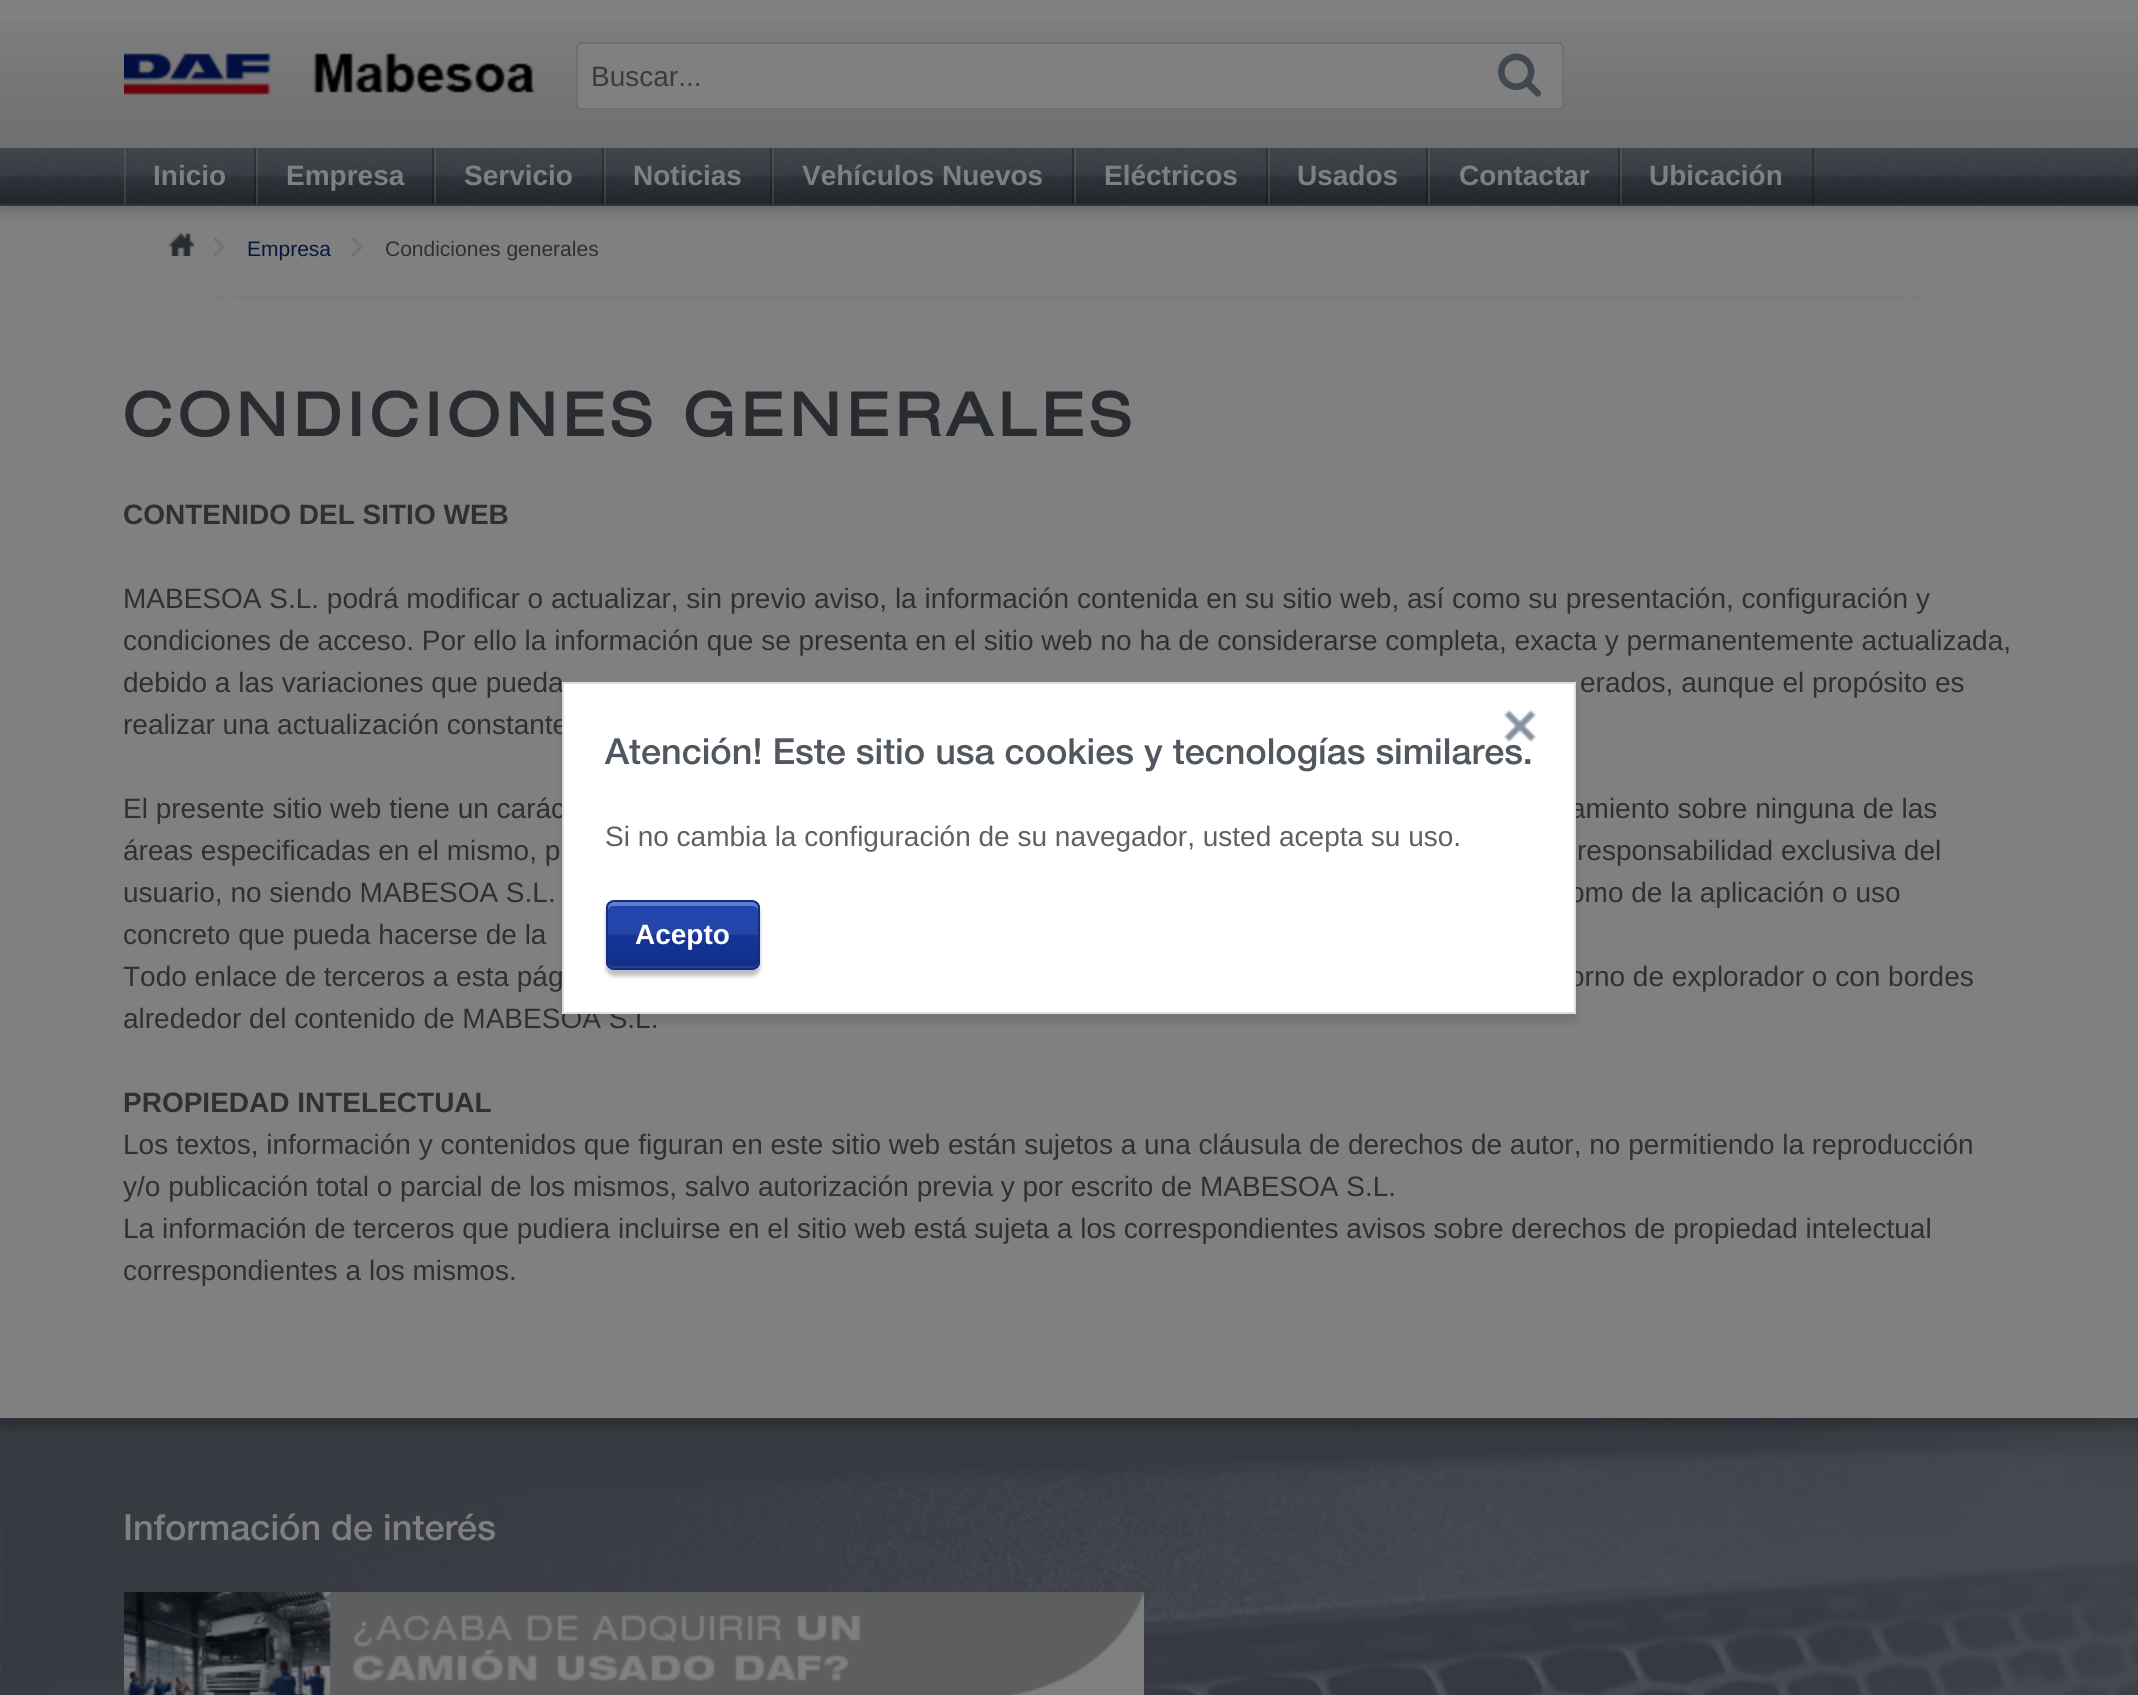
import math
import cairo


def use_color(cr, r, g, b):
  cr.set_source_rgb(r / 255, g / 255, b / 255)

def text(cr, x, y, s, family, size, color, bold=False, italic=False):
  cr.select_font_face(family, cairo.FONT_SLANT_ITALIC if italic else cairo.FONT_SLANT_NORMAL, cairo.FONT_WEIGHT_BOLD if bold else cairo.FONT_WEIGHT_NORMAL)
  cr.set_font_size(size)
  use_color(cr, *color)
  cr.move_to(x, y)
  cr.show_text(s)

def spaced_text(cr, x, y, s, letter, word):
  cr.move_to(x, y)
  for ch in s:
    cr.show_text(ch)
    cr.rel_move_to(letter + word * (ch == ' '), 0)

def box(cr, x, y, w, h, *color):
  use_color(cr, *color)
  cr.rectangle(x, y, w, h)
  cr.fill()

def round_rect(cr, x, y, w, h, r):
  cr.new_sub_path()
  for i, (u, v) in enumerate([(x + w - r, y + h - r), (x + r, y + h - r), (x + r, y + r), (x + w - r, y + r)]):
    cr.arc(u, v, r, i * math.pi / 2, (i + 1) * math.pi / 2)
  cr.close_path()

def shadow(cr, x, y, w, h, r, blur, alpha):
  cr.push_group_with_content(cairo.CONTENT_ALPHA)
  cr.set_operator(cairo.OPERATOR_SOURCE)
  for i in range(15, -16, -2):
    e = blur * i / 6
    if min(w, h) + 2 * e > 0:
      cr.set_source_rgba(0, 0, 0, alpha * math.erfc((i - 1) / 8.5) / 2)
      round_rect(cr, x - e, y - e, w + 2 * e, h + 2 * e, max(0, min(r + e + blur * .6, min(w, h) / 2 + e)))
      cr.fill()
  cr.mask(cr.pop_group())

def picture(cr, path, x, y, w, h):
  cr.save()
  cr.set_source_surface(cairo.ImageSurface.create_from_png(path), x, y)
  cr.rectangle(x, y, w, h)
  cr.fill()
  cr.restore()

def draw(cr):
  use_color(cr, 128, 128, 128)
  cr.paint()
  use_color(cr, 0, 0, 0)
  shadow(cr, 0, 150, 2138, 58, 0, 7, 0.25)
  gradient = cairo.LinearGradient(1069, 0, 1069, 148)
  gradient.add_color_stop_rgba(0, 0.502, 0.502, 0.502, 1)
  gradient.add_color_stop_rgba(1, 0.435, 0.435, 0.443, 1)
  cr.set_source(gradient)
  cr.rectangle(0, 22, 2138, 126)
  cr.fill()
  picture(cr, "img_01.png", 124, 53, 411, 42)
  use_color(cr, 128, 128, 128)
  round_rect(cr, 577, 43, 986, 66, 5)
  cr.fill_preserve()
  use_color(cr, 111, 111, 113)
  cr.stroke()
  picture(cr, "img_02.png", 1498, 53, 43, 44)
  picture(cr, "img_03.png", 0, 148, 2138, 56)
  box(cr, 0, 204, 2138, 2, 50, 54, 59)
  picture(cr, "img_04.png", 124, 148, 1892, 56)
  cr.set_source_rgba(0, 0, 0, 0.25)
  cr.rectangle(254, 148, 2, 56)
  cr.fill()
  cr.set_source_rgba(0.502, 0.502, 0.502, 0.25)
  cr.rectangle(124, 148, 2, 56)
  cr.fill()
  picture(cr, "img_05.png", 126, 148, 128, 56)
  cr.set_source_rgba(0, 0, 0, 0.25)
  cr.rectangle(432, 148, 2, 56)
  cr.fill()
  cr.set_source_rgba(0.502, 0.502, 0.502, 0.25)
  cr.rectangle(256, 148, 2, 56)
  cr.fill()
  picture(cr, "img_06.png", 258, 148, 174, 56)
  cr.set_source_rgba(0, 0, 0, 0.25)
  cr.rectangle(602, 148, 2, 56)
  cr.fill()
  cr.set_source_rgba(0.502, 0.502, 0.502, 0.25)
  cr.rectangle(434, 148, 2, 56)
  cr.fill()
  picture(cr, "img_07.png", 436, 148, 166, 56)
  cr.set_source_rgba(0, 0, 0, 0.25)
  cr.rectangle(770, 148, 2, 56)
  cr.fill()
  cr.set_source_rgba(0.502, 0.502, 0.502, 0.25)
  cr.rectangle(604, 148, 2, 56)
  cr.fill()
  picture(cr, "img_08.png", 606, 148, 164, 56)
  cr.set_source_rgba(0, 0, 0, 0.25)
  cr.rectangle(1072, 148, 2, 56)
  cr.fill()
  cr.set_source_rgba(0.502, 0.502, 0.502, 0.25)
  cr.rectangle(772, 148, 2, 56)
  cr.fill()
  picture(cr, "img_09.png", 774, 148, 298, 56)
  cr.set_source_rgba(0, 0, 0, 0.25)
  cr.rectangle(1266, 148, 2, 56)
  cr.fill()
  cr.set_source_rgba(0.502, 0.502, 0.502, 0.25)
  cr.rectangle(1074, 148, 2, 56)
  cr.fill()
  picture(cr, "img_10.png", 1076, 148, 190, 56)
  cr.set_source_rgba(0, 0, 0, 0.25)
  cr.rectangle(1426, 148, 2, 56)
  cr.fill()
  cr.set_source_rgba(0.502, 0.502, 0.502, 0.25)
  cr.rectangle(1268, 148, 2, 56)
  cr.fill()
  picture(cr, "img_11.png", 1270, 148, 156, 56)
  cr.set_source_rgba(0, 0, 0, 0.25)
  cr.rectangle(1618, 148, 2, 56)
  cr.fill()
  cr.set_source_rgba(0.502, 0.502, 0.502, 0.25)
  cr.rectangle(1428, 148, 2, 56)
  cr.fill()
  picture(cr, "img_12.png", 1430, 148, 188, 56)
  cr.set_source_rgba(0, 0, 0, 0.25)
  cr.rectangle(1812, 148, 2, 56)
  cr.fill()
  cr.set_source_rgba(0.502, 0.502, 0.502, 0.25)
  cr.rectangle(1620, 148, 2, 56)
  cr.fill()
  picture(cr, "img_13.png", 1622, 148, 190, 56)
  picture(cr, "img_14.png", 167, 231, 27, 25)
  picture(cr, "img_15.png", 214, 238, 12, 18)
  picture(cr, "img_15.png", 352, 238, 12, 18)
  picture(cr, "img_16.png", 213, 296, 1714, 5)
  use_color(cr, 0, 0, 0)
  shadow(cr, 562, 690, 1014, 332, 0, 3.5, 0.1)
  picture(cr, "img_18.png", 0, 1418, 2138, 277)
  picture(cr, "img_19.png", 0, 1418, 2138, 14)
  picture(cr, "img_20.png", 124, 1592, 1020, 103)
  text(cr, 591, 86, "Buscar...", "Liberation Sans", 28, (59, 59, 59))
  text(cr, 153, 185, "Inicio", "Liberation Sans", 28, (128, 128, 128), bold=True)
  text(cr, 286, 185, "Empresa", "Liberation Sans", 28, (128, 128, 128), bold=True)
  text(cr, 464, 185, "Servicio", "Liberation Sans", 28, (128, 128, 128), bold=True)
  text(cr, 633, 185, "Noticias", "Liberation Sans", 28, (128, 128, 128), bold=True)
  text(cr, 802, 185, "Vehículos Nuevos", "Liberation Sans", 28, (128, 128, 128), bold=True)
  text(cr, 1104, 185, "Eléctricos", "Liberation Sans", 28, (128, 128, 128), bold=True)
  text(cr, 1297, 185, "Usados", "Liberation Sans", 28, (128, 128, 128), bold=True)
  text(cr, 1459, 185, "Contactar", "Liberation Sans", 28, (128, 128, 128), bold=True)
  text(cr, 1649, 185, "Ubicación", "Liberation Sans", 28, (128, 128, 128), bold=True)
  text(cr, 247, 256, "Empresa", "Liberation Sans", 21, (9, 23, 64))
  text(cr, 385, 256, "Condiciones generales", "Liberation Sans", 21, (48, 48, 48))
  cr.select_font_face("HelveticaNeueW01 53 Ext", cairo.FONT_SLANT_NORMAL, cairo.FONT_WEIGHT_BOLD)
  cr.set_font_size(60)
  use_color(cr, 40, 44, 48)
  spaced_text(cr, 123, 436, "CONDICIONES GENERALES", 6, 0)
  text(cr, 123, 524, "CONTENIDO DEL SITIO WEB", "Liberation Sans", 28, (48, 48, 48), bold=True)
  text(cr, 123, 608, "MABESOA S.L. podrá modificar o actualizar, sin previo aviso, la información contenida en su sitio web, así como su presentación, configuración y", "Liberation Sans", 28, (48, 48, 48))
  text(cr, 123, 650, "condiciones de acceso. Por ello la información que se presenta en el sitio web no ha de considerarse completa, exacta y permanentemente actualizada,", "Liberation Sans", 28, (48, 48, 48))
  text(cr, 123, 692, "debido a las variaciones que pueda", "Liberation Sans", 28, (48, 48, 48))
  text(cr, 1580, 692, "erados, aunque el propósito es", "Liberation Sans", 28, (48, 48, 48))
  text(cr, 123, 734, "realizar una actualización constante", "Liberation Sans", 28, (48, 48, 48))
  text(cr, 123, 818, "El presente sitio web tiene un carác", "Liberation Sans", 28, (48, 48, 48))
  text(cr, 1570, 818, "amiento sobre ninguna de las", "Liberation Sans", 28, (48, 48, 48))
  text(cr, 123, 860, "áreas especificadas en el mismo, p", "Liberation Sans", 28, (48, 48, 48))
  text(cr, 1577, 860, "responsabilidad exclusiva del", "Liberation Sans", 28, (48, 48, 48))
  text(cr, 123, 902, "usuario, no siendo MABESOA S.L.", "Liberation Sans", 28, (48, 48, 48))
  text(cr, 1569, 902, "omo de la aplicación o uso", "Liberation Sans", 28, (48, 48, 48))
  text(cr, 123, 944, "concreto que pueda hacerse de la", "Liberation Sans", 28, (48, 48, 48))
  text(cr, 123, 986, "Todo enlace de terceros a esta pág", "Liberation Sans", 28, (48, 48, 48))
  text(cr, 1569, 986, "orno de explorador o con bordes", "Liberation Sans", 28, (48, 48, 48))
  text(cr, 123, 1028, "alrededor del contenido de MABESOA S.L.", "Liberation Sans", 28, (48, 48, 48))
  text(cr, 123, 1112, "PROPIEDAD INTELECTUAL", "Liberation Sans", 28, (48, 48, 48), bold=True)
  text(cr, 123, 1154, "Los textos, información y contenidos que figuran en este sitio web están sujetos a una cláusula de derechos de autor, no permitiendo la reproducción", "Liberation Sans", 28, (48, 48, 48))
  text(cr, 123, 1196, "y/o publicación total o parcial de los mismos, salvo autorización previa y por escrito de MABESOA S.L.", "Liberation Sans", 28, (48, 48, 48))
  text(cr, 123, 1238, "La información de terceros que pudiera incluirse en el sitio web está sujeta a los correspondientes avisos sobre derechos de propiedad intelectual", "Liberation Sans", 28, (48, 48, 48))
  text(cr, 123, 1280, "correspondientes a los mismos.", "Liberation Sans", 28, (48, 48, 48))
  use_color(cr, 255, 255, 255)
  cr.rectangle(563, 683, 1012, 330)
  cr.fill_preserve()
  use_color(cr, 221, 222, 226)
  cr.stroke()
  text(cr, 605, 764, "Atención! Este sitio usa cookies y tecnologías similares.", "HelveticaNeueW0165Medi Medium", 36, (80, 87, 95))
  picture(cr, "img_17.png", 1504, 710, 32, 32)
  text(cr, 605, 846, "Si no cambia la configuración de su navegador, usted acepta su uso.", "Liberation Sans", 28, (96, 96, 96))
  use_color(cr, 0, 0, 0)
  shadow(cr, 606, 906, 154, 70, 8, 2, 0.25)
  cr.save()
  round_rect(cr, 606, 900, 154, 70, 8)
  cr.clip()
  gradient = cairo.LinearGradient(683, 902, 683, 968)
  gradient.add_color_stop_rgba(0, 0.122, 0.271, 0.71, 1)
  gradient.add_color_stop_rgba(0.49, 0.149, 0.271, 0.639, 1)
  gradient.add_color_stop_rgba(0.5, 0.078, 0.208, 0.6, 1)
  gradient.add_color_stop_rgba(1, 0.067, 0.18, 0.533, 1)
  cr.set_source(gradient)
  cr.rectangle(606, 902, 154, 66)
  cr.fill()
  cr.restore()
  cr.set_source_rgba(1, 1, 1, 0.3)
  cr.new_path()
  cr.move_to(613, 906)
  cr.line_to(753, 906)
  cr.curve_to(756, 906, 758, 908, 758, 911)
  cr.line_to(758, 907)
  cr.curve_to(758, 904, 756, 902, 753, 902)
  cr.line_to(613, 902)
  cr.curve_to(610, 902, 608, 904, 608, 907)
  cr.line_to(608, 911)
  cr.curve_to(608, 908, 610, 906, 613, 906)
  cr.close_path()
  cr.fill()
  use_color(cr, 41, 67, 148)
  cr.new_path()
  cr.move_to(608, 961)
  cr.line_to(608, 963)
  cr.curve_to(608, 966, 610, 968, 613, 968)
  cr.line_to(753, 968)
  cr.curve_to(756, 968, 758, 966, 758, 963)
  cr.line_to(758, 961)
  cr.curve_to(758, 964, 756, 966, 753, 966)
  cr.line_to(613, 966)
  cr.curve_to(610, 966, 608, 964, 608, 961)
  cr.close_path()
  cr.fill()
  round_rect(cr, 607, 901, 152, 68, 7)
  use_color(cr, 17, 46, 131)
  cr.stroke()
  text(cr, 635, 944, "Acepto", "Liberation Sans", 28, (255, 255, 255), bold=True)
  text(cr, 123, 1540, "Información de interés", "HelveticaNeueW0165Medi Medium", 36, (128, 128, 128))


surface = cairo.ImageSurface(cairo.FORMAT_RGB24, 2138, 1695)
cr = cairo.Context(surface)
options = cairo.FontOptions()
options.set_hint_metrics(cairo.HINT_METRICS_OFF)
options.set_hint_style(cairo.HINT_STYLE_NONE)
cr.set_font_options(options)
cr.set_miter_limit(4)
draw(cr)
surface.write_to_png("out.png")
